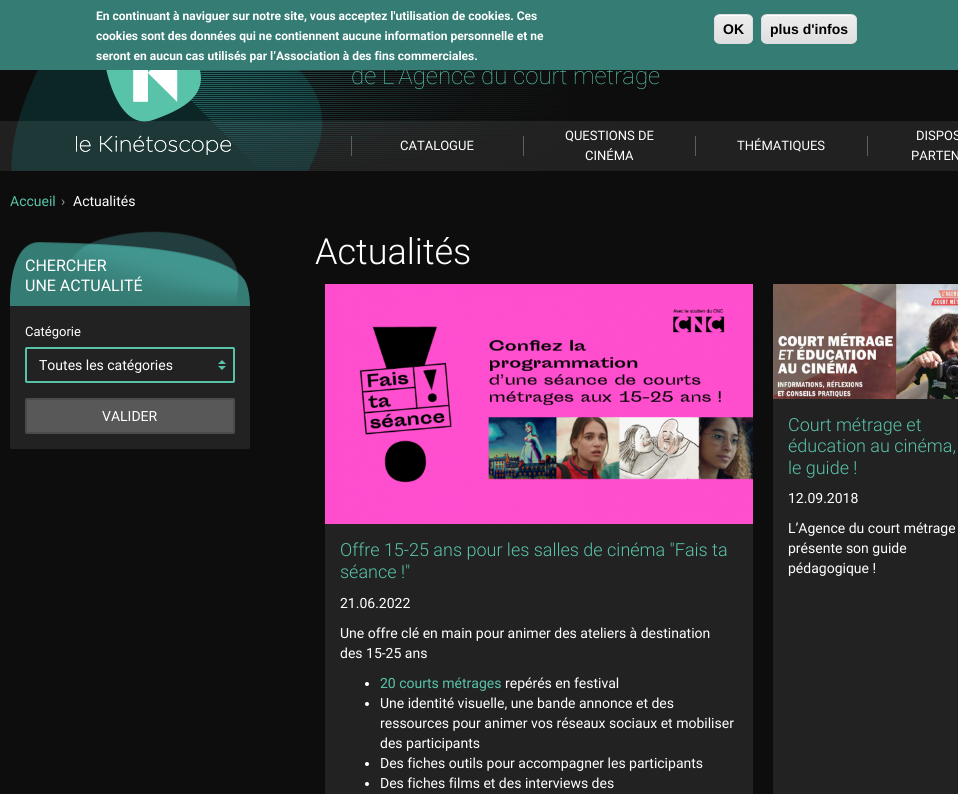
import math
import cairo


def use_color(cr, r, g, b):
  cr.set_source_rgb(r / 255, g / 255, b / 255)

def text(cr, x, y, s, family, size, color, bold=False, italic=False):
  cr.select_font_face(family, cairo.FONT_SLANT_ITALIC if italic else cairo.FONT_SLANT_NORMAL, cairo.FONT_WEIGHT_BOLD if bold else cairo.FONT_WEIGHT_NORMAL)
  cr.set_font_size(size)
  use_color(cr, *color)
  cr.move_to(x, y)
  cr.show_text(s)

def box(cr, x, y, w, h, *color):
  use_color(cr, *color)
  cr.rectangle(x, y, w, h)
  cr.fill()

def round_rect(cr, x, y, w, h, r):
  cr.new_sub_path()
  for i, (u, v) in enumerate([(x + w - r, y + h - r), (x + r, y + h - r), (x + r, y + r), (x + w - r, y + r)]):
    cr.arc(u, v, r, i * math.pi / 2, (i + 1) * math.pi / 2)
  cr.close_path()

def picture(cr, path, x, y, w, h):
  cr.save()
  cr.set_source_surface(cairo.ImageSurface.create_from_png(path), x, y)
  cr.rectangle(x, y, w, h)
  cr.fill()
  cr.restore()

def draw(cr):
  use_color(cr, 13, 13, 13)
  cr.paint()
  picture(cr, "img_01.png", 18, 70, 551, 51)
  picture(cr, "img_03.png", 11, 121, 947, 50)
  picture(cr, "img_02.png", 76, 70, 155, 85)
  box(cr, 0, 121, 11, 50, 32, 32, 32)
  box(cr, 351, 136, 1, 20, 94, 94, 94)
  box(cr, 523, 136, 1, 20, 94, 94, 94)
  box(cr, 695, 136, 1, 20, 94, 94, 94)
  box(cr, 867, 136, 1, 20, 94, 94, 94)
  use_color(cr, 34, 34, 34)
  round_rect(cr, 10, 231, 240, 218, 2)
  cr.fill()
  use_color(cr, 13, 13, 13)
  cr.new_path()
  cr.move_to(11, 231)
  cr.line_to(249, 231)
  cr.curve_to(249.5, 231, 250, 231.5, 250, 232)
  cr.line_to(250, 306)
  cr.line_to(10, 306)
  cr.line_to(10, 232)
  cr.curve_to(10, 231.5, 10.5, 231, 11, 231)
  cr.close_path()
  cr.fill()
  picture(cr, "img_04.png", 10, 231, 240, 75)
  picture(cr, "img_05.png", 218, 360, 8, 10)
  box(cr, 27, 349, 206, 1, 31, 31, 31)
  round_rect(cr, 26, 348, 208, 34, 1)
  use_color(cr, 89, 195, 170)
  cr.stroke()
  use_color(cr, 88, 88, 88)
  round_rect(cr, 26, 399, 208, 34, 1)
  cr.fill_preserve()
  use_color(cr, 75, 75, 75)
  cr.stroke()
  box(cr, 773, 399, 185, 395, 34, 34, 34)
  picture(cr, "img_06.png", 773, 284, 185, 115)
  box(cr, 325, 524, 428, 270, 34, 34, 34)
  picture(cr, "img_07.png", 325, 284, 428, 240)
  use_color(cr, 255, 255, 255)
  cr.arc(367, 684, 2, 0, 2 * math.pi)
  cr.fill()
  cr.arc(367, 704, 2, 0, 2 * math.pi)
  cr.fill()
  cr.arc(367, 764, 2, 0, 2 * math.pi)
  cr.fill()
  cr.arc(367, 784, 2, 0, 2 * math.pi)
  cr.fill()
  text(cr, 351, 84, "de L'Agence du court métrage", "Roboto Thin", 24, (89, 195, 170))
  box(cr, 0, 0, 958, 70, 53, 124, 116)
  cr.save()
  round_rect(cr, 761, 14, 96, 30, 6)
  cr.clip()
  gradient = cairo.LinearGradient(809, 15, 809, 43)
  gradient.add_color_stop_rgba(0.05, 0.929, 0.929, 0.929, 1)
  gradient.add_color_stop_rgba(1, 0.875, 0.875, 0.875, 1)
  cr.set_source(gradient)
  cr.rectangle(761, 15, 96, 28)
  cr.fill()
  cr.restore()
  use_color(cr, 255, 255, 255)
  cr.new_path()
  cr.move_to(767, 16)
  cr.line_to(851, 16)
  cr.curve_to(854, 16, 856, 18, 856, 21)
  cr.curve_to(856, 12, 843, 15, 837, 15)
  cr.line_to(781, 15)
  cr.curve_to(775, 15, 762, 12, 762, 21)
  cr.curve_to(762, 18, 764, 16, 767, 16)
  cr.close_path()
  cr.fill()
  round_rect(cr, 761.5, 14.5, 95, 29, 5.5)
  use_color(cr, 220, 220, 220)
  cr.set_line_width(1)
  cr.stroke()
  text(cr, 770, 34, "plus d'infos", "Liberation Sans", 14, (0, 0, 0), bold=True)
  cr.save()
  round_rect(cr, 714, 14, 39, 30, 6)
  cr.clip()
  gradient = cairo.LinearGradient(734, 15, 734, 43)
  gradient.add_color_stop_rgba(0.05, 0.929, 0.929, 0.929, 1)
  gradient.add_color_stop_rgba(1, 0.875, 0.875, 0.875, 1)
  cr.set_source(gradient)
  cr.rectangle(714, 15, 39, 28)
  cr.fill()
  cr.restore()
  use_color(cr, 255, 255, 255)
  cr.new_path()
  cr.move_to(720, 16)
  cr.line_to(747, 16)
  cr.curve_to(751, 16, 752, 18.5, 752, 22)
  cr.curve_to(752, 15, 748.5, 15, 742.5, 15)
  cr.line_to(724.5, 15)
  cr.curve_to(719.5, 15, 715, 14.5, 715, 20.5)
  cr.curve_to(715.5, 18, 717, 16, 720, 16)
  cr.close_path()
  cr.fill()
  round_rect(cr, 714.5, 14.5, 38, 29, 5.5)
  use_color(cr, 220, 220, 220)
  cr.stroke()
  text(cr, 723, 34, "OK", "Liberation Sans", 14, (0, 0, 0), bold=True)
  text(cr, 96, 60, "seront en aucun cas utilisés par l’Association à des fins commerciales.", "Roboto", 12, (255, 255, 255), bold=True)
  text(cr, 96, 40, "cookies sont des données qui ne contiennent aucune information personnelle et ne", "Roboto", 12, (255, 255, 255), bold=True)
  text(cr, 96, 20, "En continuant à naviguer sur notre site, vous acceptez l'utilisation de cookies. Ces", "Roboto", 12, (255, 255, 255), bold=True)
  text(cr, 400, 150, "CATALOGUE", "Roboto", 13, (255, 255, 255))
  text(cr, 565, 140, "QUESTIONS DE", "Roboto", 13, (255, 255, 255))
  text(cr, 585, 160, "CINÉMA", "Roboto", 13, (255, 255, 255))
  text(cr, 737, 150, "THÉMATIQUES", "Roboto", 13, (255, 255, 255))
  text(cr, 916, 140, "DISPOS", "Roboto", 13, (255, 255, 255))
  text(cr, 911, 160, "PARTEN", "Roboto", 13, (255, 255, 255))
  text(cr, 10, 206, "Accueil", "Roboto", 14, (89, 195, 170))
  text(cr, 61, 206, "›", "Roboto", 14, (154, 154, 154))
  text(cr, 73, 206, "Actualités", "Roboto", 14, (255, 255, 255))
  text(cr, 25, 271, "CHERCHER", "Roboto", 16, (255, 255, 255))
  text(cr, 25, 291, "UNE ACTUALITÉ", "Roboto", 16, (255, 255, 255))
  text(cr, 25, 336, "Catégorie", "Roboto", 13, (255, 255, 255))
  text(cr, 39, 370, "Toutes les catégories", "Roboto", 14, (255, 255, 255))
  text(cr, 102, 421, "VALIDER", "Roboto", 14, (255, 255, 255))
  text(cr, 315, 264, "Actualités", "Roboto Light", 36, (255, 255, 255))
  text(cr, 788, 431, "Court métrage et", "Roboto Light", 18, (89, 195, 170))
  text(cr, 788, 452, "éducation au cinéma,", "Roboto Light", 18, (89, 195, 170))
  text(cr, 788, 474, "le guide !", "Roboto Light", 18, (89, 195, 170))
  text(cr, 788, 503, "12.09.2018", "Roboto", 14, (255, 255, 255))
  text(cr, 788, 533, "L’Agence du court métrage", "Roboto", 14, (255, 255, 255))
  text(cr, 788, 553, "présente son guide", "Roboto", 14, (255, 255, 255))
  text(cr, 788, 573, "pédagogique !", "Roboto", 14, (255, 255, 255))
  text(cr, 340, 556, "Offre 15-25 ans pour les salles de cinéma \"Fais ta", "Roboto Light", 18, (89, 195, 170))
  text(cr, 340, 578, "séance !\"", "Roboto Light", 18, (89, 195, 170))
  text(cr, 340, 608, "21.06.2022", "Roboto", 14, (255, 255, 255))
  text(cr, 340, 638, "Une offre clé en main pour animer des ateliers à destination", "Roboto", 14, (255, 255, 255))
  text(cr, 340, 658, "des 15-25 ans", "Roboto", 14, (255, 255, 255))
  text(cr, 380, 688, "20 courts métrages", "Roboto", 14, (89, 195, 170))
  text(cr, 505, 688, "repérés en festival", "Roboto", 14, (255, 255, 255))
  text(cr, 380, 708, "Une identité visuelle, une bande annonce et des", "Roboto", 14, (255, 255, 255))
  text(cr, 380, 728, "ressources pour animer vos réseaux sociaux et mobiliser", "Roboto", 14, (255, 255, 255))
  text(cr, 380, 748, "des participants", "Roboto", 14, (255, 255, 255))
  text(cr, 380, 768, "Des fiches outils pour accompagner les participants", "Roboto", 14, (255, 255, 255))
  text(cr, 380, 788, "Des fiches films et des interviews des", "Roboto", 14, (255, 255, 255))


surface = cairo.ImageSurface(cairo.FORMAT_RGB24, 958, 794)
cr = cairo.Context(surface)
options = cairo.FontOptions()
options.set_hint_metrics(cairo.HINT_METRICS_OFF)
options.set_hint_style(cairo.HINT_STYLE_NONE)
cr.set_font_options(options)
cr.set_miter_limit(4)
draw(cr)
surface.write_to_png("out.png")
